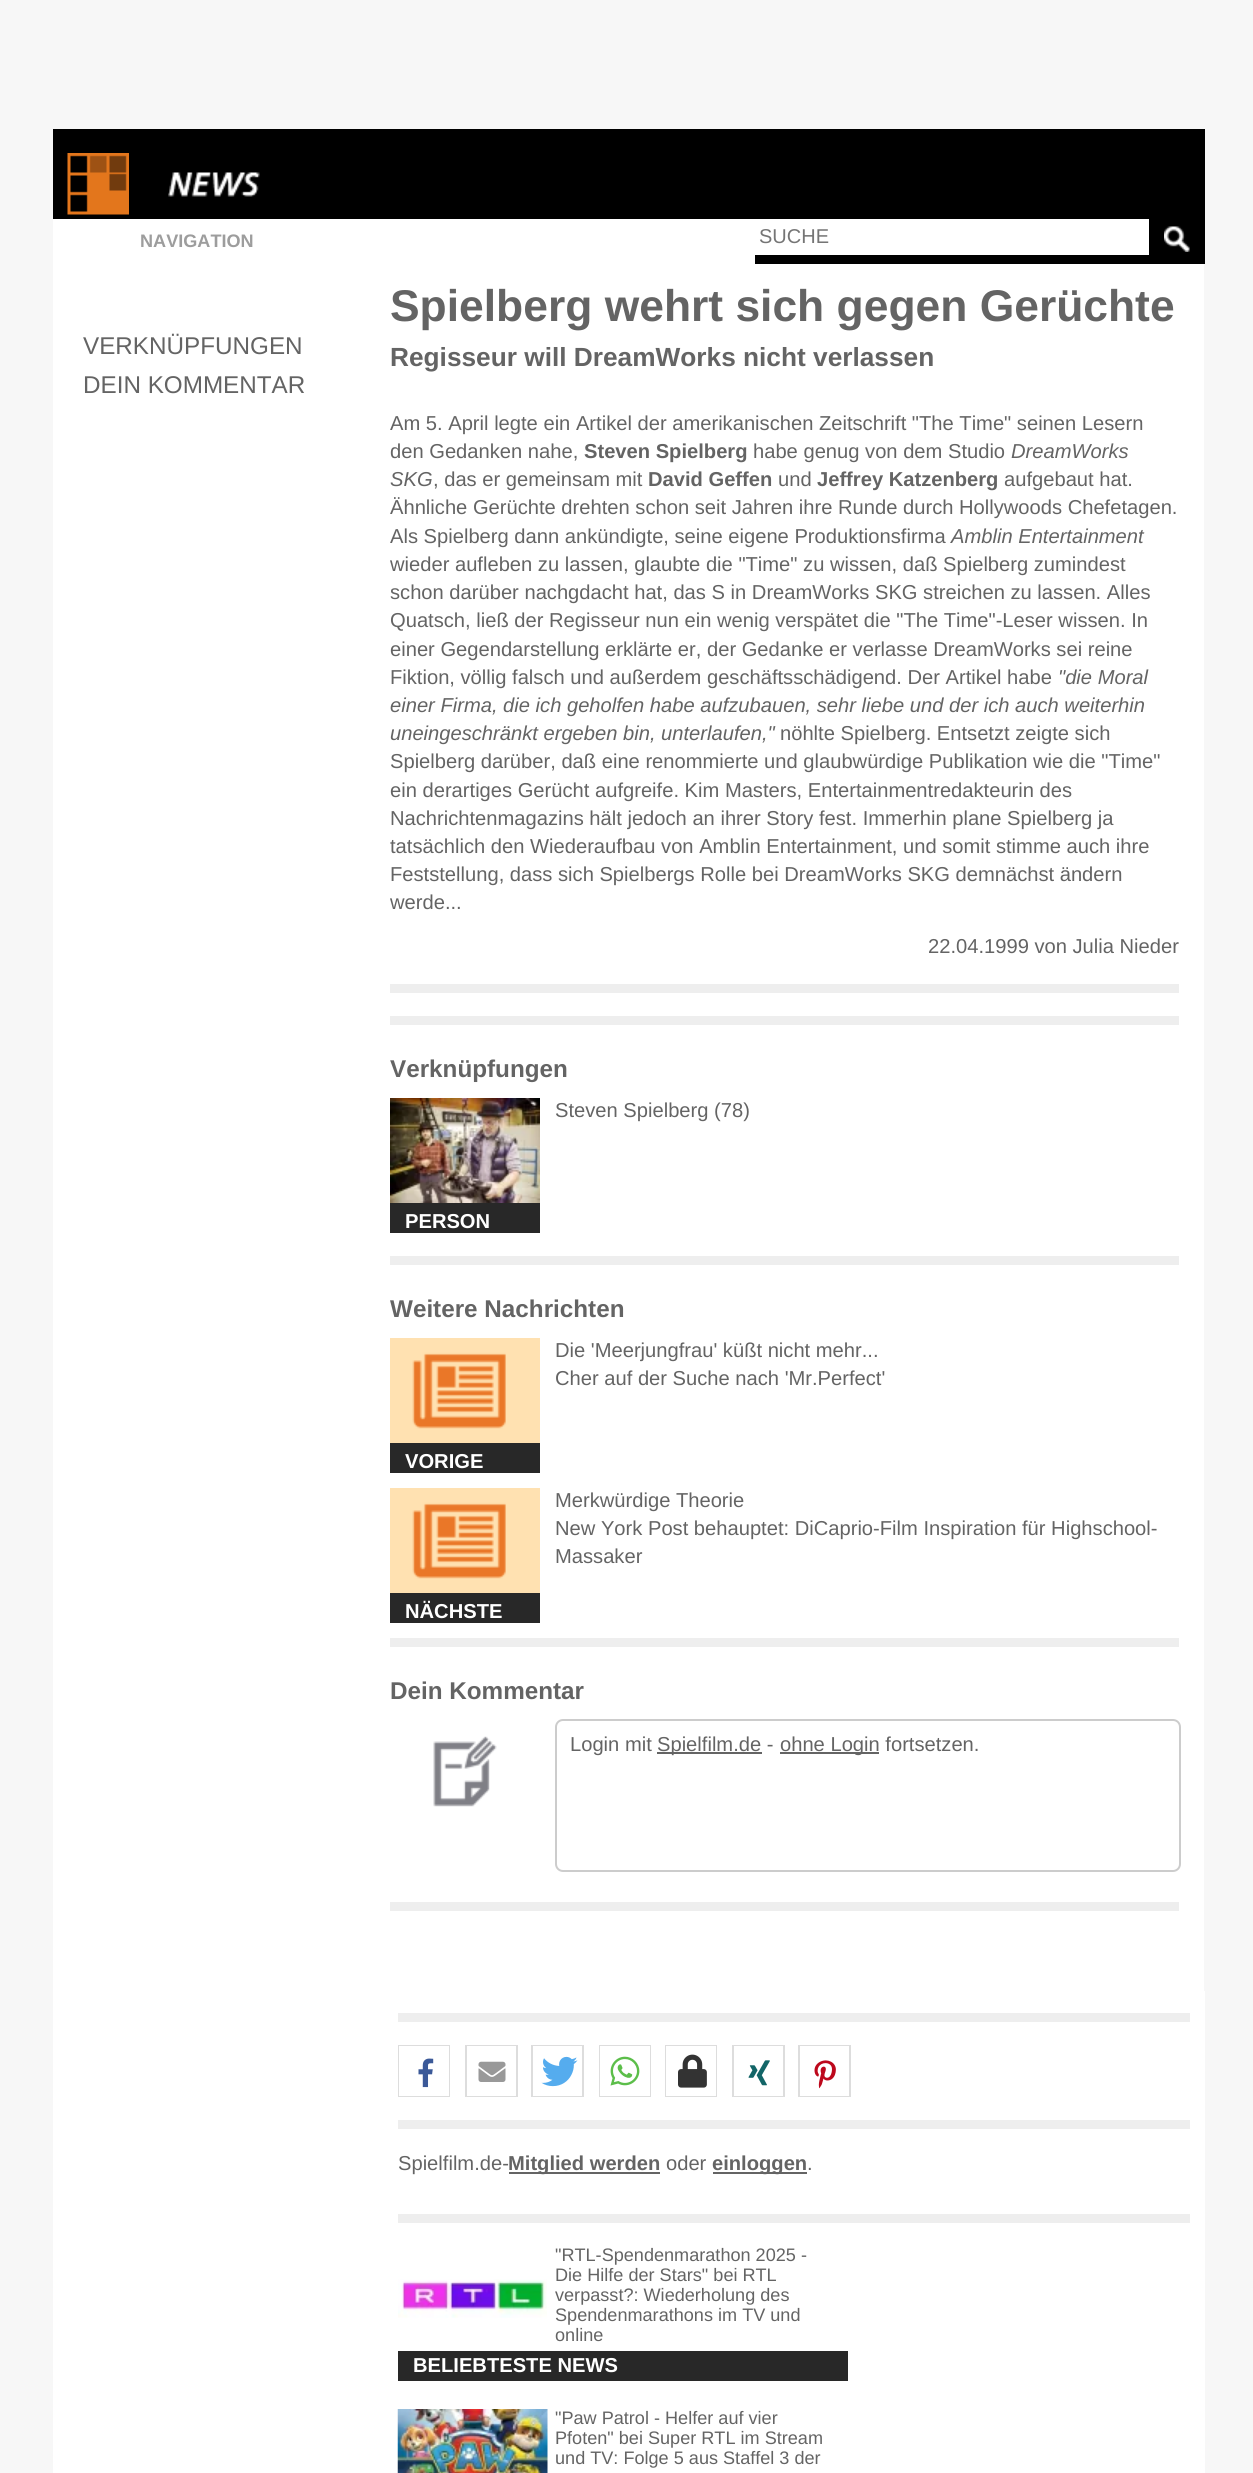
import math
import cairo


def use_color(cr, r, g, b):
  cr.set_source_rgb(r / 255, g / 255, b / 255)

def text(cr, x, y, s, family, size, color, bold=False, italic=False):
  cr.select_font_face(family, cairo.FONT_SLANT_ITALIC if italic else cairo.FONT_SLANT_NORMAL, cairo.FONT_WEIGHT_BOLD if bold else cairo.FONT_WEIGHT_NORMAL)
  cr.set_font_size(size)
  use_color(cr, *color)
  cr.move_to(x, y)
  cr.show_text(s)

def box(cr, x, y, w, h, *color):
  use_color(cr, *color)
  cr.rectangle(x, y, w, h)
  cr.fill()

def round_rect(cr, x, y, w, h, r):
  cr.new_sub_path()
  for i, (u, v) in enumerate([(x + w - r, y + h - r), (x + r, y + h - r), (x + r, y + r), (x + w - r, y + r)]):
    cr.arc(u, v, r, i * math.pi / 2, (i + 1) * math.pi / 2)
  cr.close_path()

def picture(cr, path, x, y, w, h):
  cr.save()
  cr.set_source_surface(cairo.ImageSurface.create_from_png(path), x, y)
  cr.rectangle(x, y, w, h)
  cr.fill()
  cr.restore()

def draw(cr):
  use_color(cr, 247, 247, 247)
  cr.paint()
  box(cr, 53, 264, 1151, 2209, 255, 255, 255)
  box(cr, 53, 129, 1152, 90, 0, 0, 0)
  picture(cr, "img_01.png", 67, 153, 62, 62)
  picture(cr, "img_02.png", 168, 172, 92, 25)
  box(cr, 53, 219, 702, 45, 255, 255, 255)
  box(cr, 755, 219, 450, 45, 0, 0, 0)
  box(cr, 755, 219, 394, 36, 255, 255, 255)
  picture(cr, "img_03.png", 1164, 226, 26, 26)
  box(cr, 390, 984, 789, 9, 238, 238, 238)
  box(cr, 390, 1016, 789, 9, 238, 238, 238)
  box(cr, 390, 1203, 150, 30, 40, 40, 40)
  picture(cr, "img_04.png", 390, 1098, 150, 105)
  box(cr, 390, 1256, 789, 9, 238, 238, 238)
  box(cr, 390, 1443, 150, 30, 40, 40, 40)
  picture(cr, "img_05.png", 390, 1338, 150, 105)
  box(cr, 390, 1593, 150, 30, 40, 40, 40)
  picture(cr, "img_05.png", 390, 1488, 150, 105)
  box(cr, 390, 1638, 789, 9, 238, 238, 238)
  picture(cr, "img_06.png", 433, 1736, 64, 71)
  round_rect(cr, 556, 1720, 624, 151, 7)
  use_color(cr, 204, 204, 204)
  cr.stroke()
  box(cr, 657, 1752, 105, 2, 100, 100, 100)
  box(cr, 780, 1752, 99, 2, 100, 100, 100)
  box(cr, 390, 1902, 789, 9, 238, 238, 238)
  box(cr, 1204, 1991, 1, 482, 255, 255, 255)
  box(cr, 398, 2013, 792, 9, 238, 238, 238)
  cr.rectangle(399, 2046, 50, 50)
  use_color(cr, 221, 221, 221)
  cr.stroke()
  box(cr, 399, 2046, 50, 50, 255, 255, 255)
  picture(cr, "img_07.png", 418, 2058, 16, 30)
  cr.rectangle(466, 2046, 51, 50)
  use_color(cr, 221, 221, 221)
  cr.stroke()
  box(cr, 467, 2046, 49, 50, 255, 255, 255)
  picture(cr, "img_08.png", 478, 2061, 28, 21)
  cr.rectangle(532, 2046, 51, 50)
  use_color(cr, 221, 221, 221)
  cr.stroke()
  box(cr, 533, 2046, 49, 50, 255, 255, 255)
  picture(cr, "img_09.png", 541, 2056, 37, 31)
  cr.rectangle(600, 2046, 50, 50)
  use_color(cr, 221, 221, 221)
  cr.stroke()
  box(cr, 600, 2046, 50, 50, 255, 255, 255)
  picture(cr, "img_10.png", 610, 2056, 30, 30)
  cr.rectangle(666, 2046, 50, 50)
  use_color(cr, 221, 221, 221)
  cr.stroke()
  box(cr, 666, 2046, 50, 50, 255, 255, 255)
  picture(cr, "img_11.png", 678, 2054, 29, 34)
  cr.rectangle(733, 2046, 51, 50)
  use_color(cr, 221, 221, 221)
  cr.stroke()
  box(cr, 734, 2046, 49, 50, 255, 255, 255)
  picture(cr, "img_12.png", 748, 2060, 22, 26)
  cr.rectangle(799, 2046, 51, 50)
  use_color(cr, 221, 221, 221)
  cr.stroke()
  box(cr, 800, 2046, 49, 50, 255, 255, 255)
  picture(cr, "img_13.png", 814, 2060, 22, 29)
  box(cr, 398, 2120, 792, 9, 238, 238, 238)
  box(cr, 509, 2172, 151, 2, 100, 100, 100)
  box(cr, 713, 2172, 94, 2, 100, 100, 100)
  box(cr, 398, 2214, 792, 9, 238, 238, 238)
  picture(cr, "img_14.png", 398, 2279, 149, 39)
  box(cr, 398, 2351, 450, 30, 40, 40, 40)
  picture(cr, "img_15.png", 397, 2409, 151, 64)
  text(cr, 140, 247, "NAVIGATION", "Liberation Sans", 18.1, (157, 157, 157), bold=True)
  text(cr, 759, 243, "SUCHE", "Liberation Sans", 20, (117, 117, 117))
  text(cr, 83, 354, "VERKNÜPFUNGEN", "Liberation Sans", 24.25, (100, 100, 100))
  text(cr, 83, 393, "DEIN KOMMENTAR", "Liberation Sans", 24.25, (100, 100, 100))
  text(cr, 390, 321, "Spielberg wehrt sich gegen Gerüchte", "Liberation Sans", 44.4, (100, 100, 100), bold=True)
  text(cr, 390, 366, "Regisseur will DreamWorks nicht verlassen", "Liberation Sans", 26.25, (100, 100, 100), bold=True)
  text(cr, 390, 430, "Am 5. April legte ein Artikel der amerikanischen Zeitschrift \"The Time\" seinen Lesern", "Liberation Sans", 20.15, (100, 100, 100))
  text(cr, 390, 458, "den Gedanken nahe,", "Liberation Sans", 20.15, (100, 100, 100))
  text(cr, 584, 458, "Steven Spielberg", "Liberation Sans", 20.15, (100, 100, 100), bold=True)
  text(cr, 753, 458, "habe genug von dem Studio", "Liberation Sans", 20.15, (100, 100, 100))
  text(cr, 1011, 458, "DreamWorks", "Liberation Sans", 20.15, (100, 100, 100), italic=True)
  text(cr, 390, 486, "SKG", "Liberation Sans", 20.15, (100, 100, 100), italic=True)
  text(cr, 433, 486, ", das er gemeinsam mit", "Liberation Sans", 20.15, (100, 100, 100))
  text(cr, 648, 486, "David Geffen", "Liberation Sans", 20.15, (100, 100, 100), bold=True)
  text(cr, 778, 486, "und", "Liberation Sans", 20.15, (100, 100, 100))
  text(cr, 817, 486, "Jeffrey Katzenberg", "Liberation Sans", 20.15, (100, 100, 100), bold=True)
  text(cr, 1004, 486, "aufgebaut hat.", "Liberation Sans", 20.15, (100, 100, 100))
  text(cr, 390, 514, "Ähnliche Gerüchte drehten schon seit Jahren ihre Runde durch Hollywoods Chefetagen.", "Liberation Sans", 20.15, (100, 100, 100))
  text(cr, 390, 543, "Als Spielberg dann ankündigte, seine eigene Produktionsfirma", "Liberation Sans", 20.15, (100, 100, 100))
  text(cr, 951, 543, "Amblin Entertainment", "Liberation Sans", 20.15, (100, 100, 100), italic=True)
  text(cr, 390, 571, "wieder aufleben zu lassen, glaubte die \"Time\" zu wissen, daß Spielberg zumindest", "Liberation Sans", 20.15, (100, 100, 100))
  text(cr, 390, 599, "schon darüber nachgdacht hat, das S in DreamWorks SKG streichen zu lassen. Alles", "Liberation Sans", 20.15, (100, 100, 100))
  text(cr, 390, 627, "Quatsch, ließ der Regisseur nun ein wenig verspätet die \"The Time\"-Leser wissen. In", "Liberation Sans", 20.15, (100, 100, 100))
  text(cr, 390, 656, "einer Gegendarstellung erklärte er, der Gedanke er verlasse DreamWorks sei reine", "Liberation Sans", 20.15, (100, 100, 100))
  text(cr, 390, 684, "Fiktion, völlig falsch und außerdem geschäftsschädigend. Der Artikel habe", "Liberation Sans", 20.15, (100, 100, 100))
  text(cr, 1058, 684, "\"die Moral", "Liberation Sans", 20.15, (100, 100, 100), italic=True)
  text(cr, 390, 712, "einer Firma, die ich geholfen habe aufzubauen, sehr liebe und der ich auch weiterhin", "Liberation Sans", 20.15, (100, 100, 100), italic=True)
  text(cr, 390, 740, "uneingeschränkt ergeben bin, unterlaufen,\"", "Liberation Sans", 20.15, (100, 100, 100), italic=True)
  text(cr, 780, 740, "nöhlte Spielberg. Entsetzt zeigte sich", "Liberation Sans", 20.15, (100, 100, 100))
  text(cr, 390, 768, "Spielberg darüber, daß eine renommierte und glaubwürdige Publikation wie die \"Time\"", "Liberation Sans", 20.15, (100, 100, 100))
  text(cr, 390, 797, "ein derartiges Gerücht aufgreife. Kim Masters, Entertainmentredakteurin des", "Liberation Sans", 20.15, (100, 100, 100))
  text(cr, 390, 825, "Nachrichtenmagazins hält jedoch an ihrer Story fest. Immerhin plane Spielberg ja", "Liberation Sans", 20.15, (100, 100, 100))
  text(cr, 390, 853, "tatsächlich den Wiederaufbau von Amblin Entertainment, und somit stimme auch ihre", "Liberation Sans", 20.15, (100, 100, 100))
  text(cr, 390, 881, "Feststellung, dass sich Spielbergs Rolle bei DreamWorks SKG demnächst ändern", "Liberation Sans", 20.15, (100, 100, 100))
  text(cr, 390, 909, "werde...", "Liberation Sans", 20.15, (100, 100, 100))
  text(cr, 928, 953, "22.04.1999 von Julia Nieder", "Liberation Sans", 20.15, (100, 100, 100))
  text(cr, 390, 1077, "Verknüpfungen", "Liberation Sans", 24.25, (100, 100, 100), bold=True)
  text(cr, 555, 1117, "Steven Spielberg (78)", "Liberation Sans", 20.15, (100, 100, 100))
  text(cr, 405, 1228, "PERSON", "Liberation Sans", 20.15, (255, 255, 255), bold=True)
  text(cr, 390, 1317, "Weitere Nachrichten", "Liberation Sans", 24.25, (100, 100, 100), bold=True)
  text(cr, 555, 1357, "Die 'Meerjungfrau' küßt nicht mehr...", "Liberation Sans", 20.15, (100, 100, 100))
  text(cr, 555, 1385, "Cher auf der Suche nach 'Mr.Perfect'", "Liberation Sans", 20.15, (100, 100, 100))
  text(cr, 405, 1468, "VORIGE", "Liberation Sans", 20.15, (255, 255, 255), bold=True)
  text(cr, 555, 1507, "Merkwürdige Theorie", "Liberation Sans", 20.15, (100, 100, 100))
  text(cr, 555, 1535, "New York Post behauptet: DiCaprio-Film Inspiration für Highschool-", "Liberation Sans", 20.15, (100, 100, 100))
  text(cr, 555, 1563, "Massaker", "Liberation Sans", 20.15, (100, 100, 100))
  text(cr, 405, 1618, "NÄCHSTE", "Liberation Sans", 20.15, (255, 255, 255), bold=True)
  text(cr, 390, 1699, "Dein Kommentar", "Liberation Sans", 24.25, (100, 100, 100), bold=True)
  text(cr, 570, 1751, "Login mit", "Liberation Sans", 20.15, (100, 100, 100))
  text(cr, 657, 1751, "Spielfilm.de -", "Liberation Sans", 20.15, (100, 100, 100))
  text(cr, 780, 1751, "ohne Login fortsetzen.", "Liberation Sans", 20.15, (100, 100, 100))
  text(cr, 398, 2170, "Spielfilm.de-", "Liberation Sans", 20.15, (100, 100, 100))
  text(cr, 508, 2170, "Mitglied werden", "Liberation Sans", 20.15, (100, 100, 100), bold=True)
  text(cr, 666, 2170, "oder", "Liberation Sans", 20.15, (100, 100, 100))
  text(cr, 712, 2170, "einloggen", "Liberation Sans", 20.15, (100, 100, 100), bold=True)
  text(cr, 807, 2170, ".", "Liberation Sans", 20.15, (100, 100, 100))
  text(cr, 555, 2261, "\"RTL-Spendenmarathon 2025 -", "Liberation Sans", 18.1, (100, 100, 100))
  text(cr, 555, 2281, "Die Hilfe der Stars\" bei RTL", "Liberation Sans", 18.1, (100, 100, 100))
  text(cr, 555, 2301, "verpasst?: Wiederholung des", "Liberation Sans", 18.1, (100, 100, 100))
  text(cr, 555, 2321, "Spendenmarathons im TV und", "Liberation Sans", 18.1, (100, 100, 100))
  text(cr, 555, 2341, "online", "Liberation Sans", 18.1, (100, 100, 100))
  text(cr, 413, 2372, "BELIEBTESTE NEWS", "Liberation Sans", 20.15, (255, 255, 255), bold=True)
  text(cr, 555, 2424, "\"Paw Patrol - Helfer auf vier", "Liberation Sans", 18.1, (100, 100, 100))
  text(cr, 555, 2444, "Pfoten\" bei Super RTL im Stream", "Liberation Sans", 18.1, (100, 100, 100))
  text(cr, 555, 2464, "und TV: Folge 5 aus Staffel 3 der", "Liberation Sans", 18.1, (100, 100, 100))


surface = cairo.ImageSurface(cairo.FORMAT_RGB24, 1253, 2473)
cr = cairo.Context(surface)
options = cairo.FontOptions()
options.set_hint_metrics(cairo.HINT_METRICS_OFF)
options.set_hint_style(cairo.HINT_STYLE_NONE)
cr.set_font_options(options)
cr.set_miter_limit(4)
draw(cr)
surface.write_to_png("out.png")
